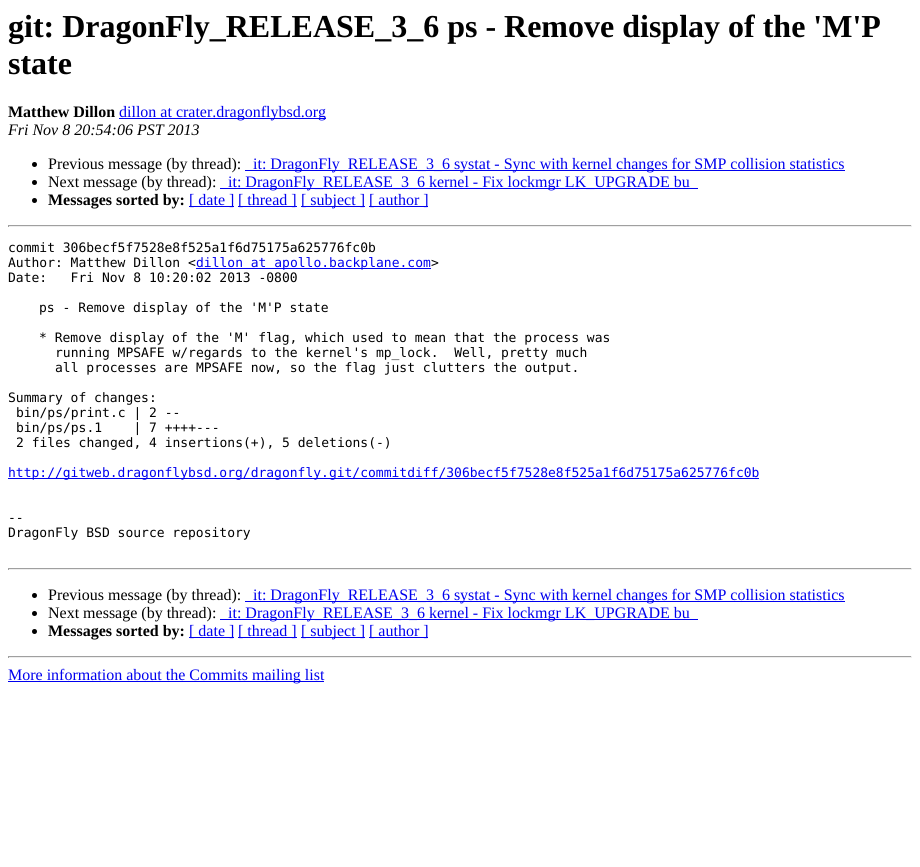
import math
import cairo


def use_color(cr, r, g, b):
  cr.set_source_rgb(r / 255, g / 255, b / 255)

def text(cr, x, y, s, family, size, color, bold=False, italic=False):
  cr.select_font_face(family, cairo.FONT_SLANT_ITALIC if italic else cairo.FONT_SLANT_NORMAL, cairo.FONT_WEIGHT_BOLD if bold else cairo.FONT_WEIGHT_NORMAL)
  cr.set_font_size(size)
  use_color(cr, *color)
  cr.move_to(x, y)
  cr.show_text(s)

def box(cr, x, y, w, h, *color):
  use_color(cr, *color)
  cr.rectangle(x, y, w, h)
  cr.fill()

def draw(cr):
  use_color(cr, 255, 255, 255)
  cr.paint()
  box(cr, 119, 118, 207, 1, 0, 0, 238)
  use_color(cr, 0, 0, 0)
  cr.arc(34.5, 164.5, 2.5, 0, 2 * math.pi)
  cr.fill()
  box(cr, 245, 170, 600, 1, 0, 0, 238)
  use_color(cr, 0, 0, 0)
  cr.arc(34.5, 182.5, 2.5, 0, 2 * math.pi)
  cr.fill()
  box(cr, 220, 188, 478, 1, 0, 0, 238)
  use_color(cr, 0, 0, 0)
  cr.arc(34.5, 200.5, 2.5, 0, 2 * math.pi)
  cr.fill()
  box(cr, 189, 206, 45, 1, 0, 0, 238)
  box(cr, 238, 206, 59, 1, 0, 0, 238)
  box(cr, 301, 206, 64, 1, 0, 0, 238)
  box(cr, 369, 206, 59, 1, 0, 0, 238)
  box(cr, 8, 225, 904, 1, 159, 159, 159)
  box(cr, 911, 225, 1, 2, 238, 238, 238)
  box(cr, 8, 226, 904, 1, 238, 238, 238)
  box(cr, 8, 225, 1, 2, 159, 159, 159)
  box(cr, 196, 268, 235, 1, 0, 0, 238)
  box(cr, 8, 478, 751, 1, 0, 0, 238)
  box(cr, 8, 568, 904, 1, 159, 159, 159)
  box(cr, 911, 568, 1, 2, 238, 238, 238)
  box(cr, 8, 569, 904, 1, 238, 238, 238)
  box(cr, 8, 568, 1, 2, 159, 159, 159)
  use_color(cr, 0, 0, 0)
  cr.arc(34.5, 595.5, 2.5, 0, 2 * math.pi)
  cr.fill()
  box(cr, 245, 601, 600, 1, 0, 0, 238)
  use_color(cr, 0, 0, 0)
  cr.arc(34.5, 613.5, 2.5, 0, 2 * math.pi)
  cr.fill()
  box(cr, 220, 619, 478, 1, 0, 0, 238)
  use_color(cr, 0, 0, 0)
  cr.arc(34.5, 631.5, 2.5, 0, 2 * math.pi)
  cr.fill()
  box(cr, 189, 637, 45, 1, 0, 0, 238)
  box(cr, 238, 637, 59, 1, 0, 0, 238)
  box(cr, 301, 637, 64, 1, 0, 0, 238)
  box(cr, 369, 637, 59, 1, 0, 0, 238)
  box(cr, 8, 656, 904, 1, 159, 159, 159)
  box(cr, 911, 656, 1, 2, 238, 238, 238)
  box(cr, 8, 657, 904, 1, 238, 238, 238)
  box(cr, 8, 656, 1, 2, 159, 159, 159)
  box(cr, 8, 681, 316, 1, 0, 0, 238)
  text(cr, 8, 37, "git: DragonFly_RELEASE_3_6 ps - Remove display of the 'M'P", "Liberation Serif", 32, (0, 0, 0), bold=True)
  text(cr, 8, 74, "state", "Liberation Serif", 32, (0, 0, 0), bold=True)
  text(cr, 8, 117, "Matthew Dillon", "Liberation Serif", 16, (0, 0, 0), bold=True)
  text(cr, 119, 117, "dillon at crater.dragonflybsd.org", "Liberation Serif", 16, (0, 0, 238))
  text(cr, 8, 135, "Fri Nov 8 20:54:06 PST 2013", "Liberation Serif", 16, (0, 0, 0), italic=True)
  text(cr, 48, 169, "Previous message (by thread):", "Liberation Serif", 16, (0, 0, 0))
  text(cr, 253, 169, "it: DragonFly_RELEASE_3_6 systat - Sync with kernel changes for SMP collision statistics", "Liberation Serif", 16, (0, 0, 238))
  text(cr, 48, 187, "Next message (by thread):", "Liberation Serif", 16, (0, 0, 0))
  text(cr, 228, 187, "it: DragonFly_RELEASE_3_6 kernel - Fix lockmgr LK_UPGRADE bu", "Liberation Serif", 16, (0, 0, 238))
  text(cr, 48, 205, "Messages sorted by:", "Liberation Serif", 16, (0, 0, 0), bold=True)
  text(cr, 189, 205, "[ date ]", "Liberation Serif", 16, (0, 0, 238))
  text(cr, 238, 205, "[ thread ]", "Liberation Serif", 16, (0, 0, 238))
  text(cr, 301, 205, "[ subject ]", "Liberation Serif", 16, (0, 0, 238))
  text(cr, 369, 205, "[ author ]", "Liberation Serif", 16, (0, 0, 238))
  text(cr, 8, 252, "commit 306becf5f7528e8f525a1f6d75175a625776fc0b", "DejaVu Sans Mono", 13, (0, 0, 0))
  text(cr, 8, 267, "Author: Matthew Dillon <", "DejaVu Sans Mono", 13, (0, 0, 0))
  text(cr, 196, 267, "dillon at apollo.backplane.com", "DejaVu Sans Mono", 13, (0, 0, 238))
  text(cr, 431, 267, ">", "DejaVu Sans Mono", 13, (0, 0, 0))
  text(cr, 8, 282, "Date:   Fri Nov 8 10:20:02 2013 -0800", "DejaVu Sans Mono", 13, (0, 0, 0))
  text(cr, 39, 312, "ps - Remove display of the 'M'P state", "DejaVu Sans Mono", 13, (0, 0, 0))
  text(cr, 39, 342, "* Remove display of the 'M' flag, which used to mean that the process was", "DejaVu Sans Mono", 13, (0, 0, 0))
  text(cr, 55, 357, "running MPSAFE w/regards to the kernel's mp_lock.  Well, pretty much", "DejaVu Sans Mono", 13, (0, 0, 0))
  text(cr, 55, 372, "all processes are MPSAFE now, so the flag just clutters the output.", "DejaVu Sans Mono", 13, (0, 0, 0))
  text(cr, 8, 402, "Summary of changes:", "DejaVu Sans Mono", 13, (0, 0, 0))
  text(cr, 16, 417, "bin/ps/print.c | 2 --", "DejaVu Sans Mono", 13, (0, 0, 0))
  text(cr, 16, 432, "bin/ps/ps.1    | 7 ++++---", "DejaVu Sans Mono", 13, (0, 0, 0))
  text(cr, 16, 447, "2 files changed, 4 insertions(+), 5 deletions(-)", "DejaVu Sans Mono", 13, (0, 0, 0))
  text(cr, 8, 477, "http://gitweb.dragonflybsd.org/dragonfly.git/commitdiff/306becf5f7528e8f525a1f6d75175a625776fc0b", "DejaVu Sans Mono", 13, (0, 0, 238))
  text(cr, 8, 522, "--", "DejaVu Sans Mono", 13, (0, 0, 0))
  text(cr, 8, 537, "DragonFly BSD source repository", "DejaVu Sans Mono", 13, (0, 0, 0))
  text(cr, 48, 600, "Previous message (by thread):", "Liberation Serif", 16, (0, 0, 0))
  text(cr, 253, 600, "it: DragonFly_RELEASE_3_6 systat - Sync with kernel changes for SMP collision statistics", "Liberation Serif", 16, (0, 0, 238))
  text(cr, 48, 618, "Next message (by thread):", "Liberation Serif", 16, (0, 0, 0))
  text(cr, 228, 618, "it: DragonFly_RELEASE_3_6 kernel - Fix lockmgr LK_UPGRADE bu", "Liberation Serif", 16, (0, 0, 238))
  text(cr, 48, 636, "Messages sorted by:", "Liberation Serif", 16, (0, 0, 0), bold=True)
  text(cr, 189, 636, "[ date ]", "Liberation Serif", 16, (0, 0, 238))
  text(cr, 238, 636, "[ thread ]", "Liberation Serif", 16, (0, 0, 238))
  text(cr, 301, 636, "[ subject ]", "Liberation Serif", 16, (0, 0, 238))
  text(cr, 369, 636, "[ author ]", "Liberation Serif", 16, (0, 0, 238))
  text(cr, 8, 680, "More information about the Commits mailing list", "Liberation Serif", 16, (0, 0, 238))


surface = cairo.ImageSurface(cairo.FORMAT_RGB24, 920, 867)
cr = cairo.Context(surface)
options = cairo.FontOptions()
options.set_hint_metrics(cairo.HINT_METRICS_OFF)
options.set_hint_style(cairo.HINT_STYLE_NONE)
cr.set_font_options(options)
cr.set_miter_limit(4)
draw(cr)
surface.write_to_png("out.png")
